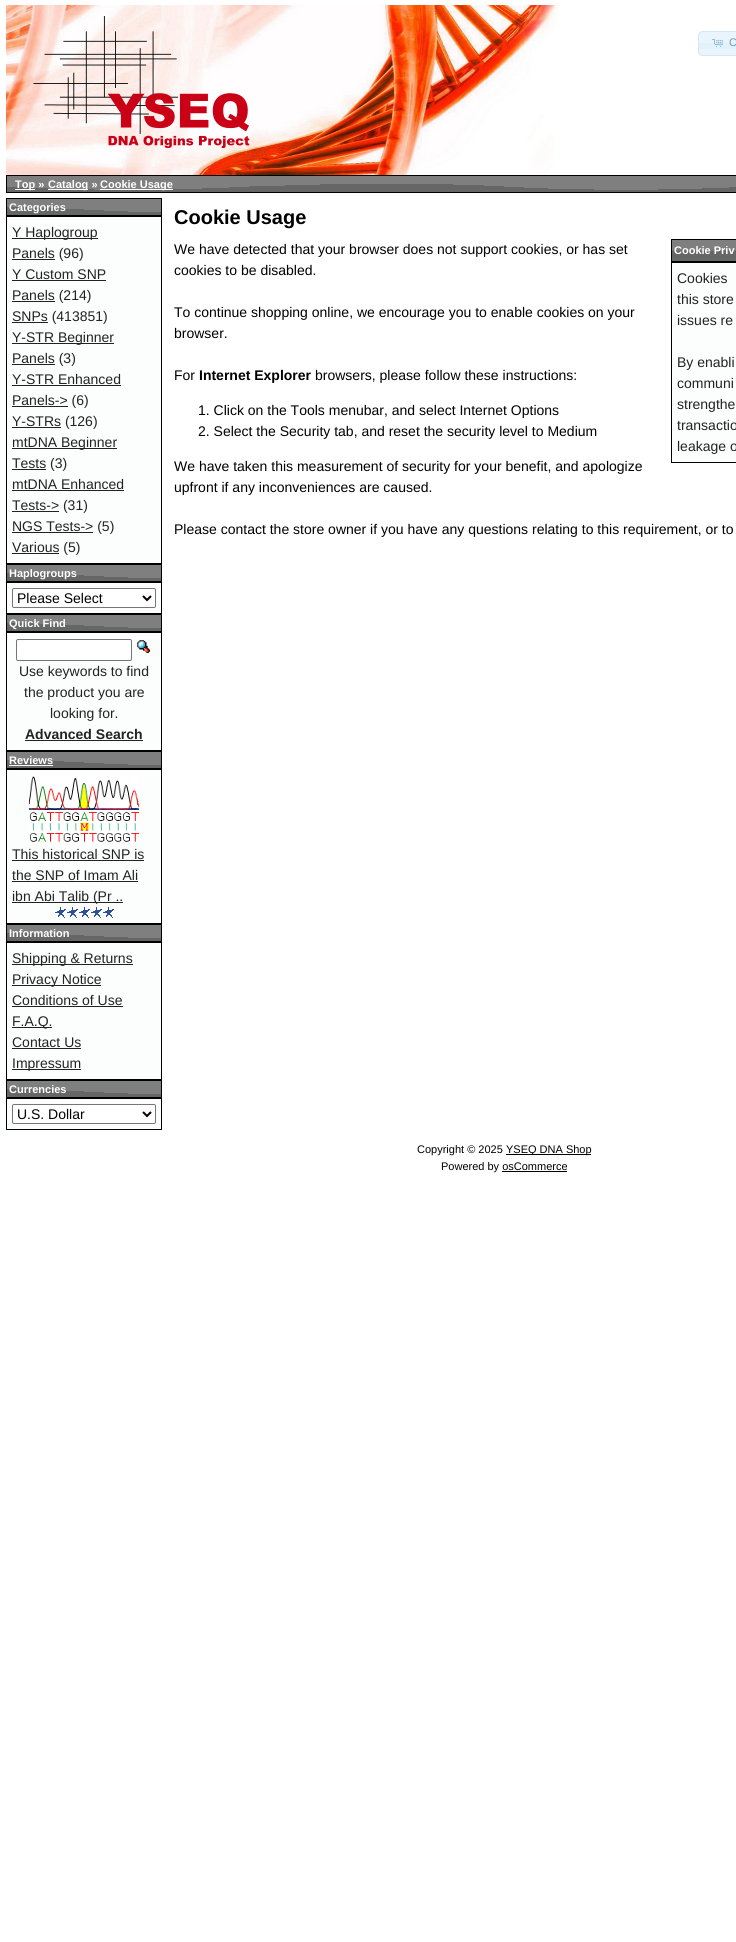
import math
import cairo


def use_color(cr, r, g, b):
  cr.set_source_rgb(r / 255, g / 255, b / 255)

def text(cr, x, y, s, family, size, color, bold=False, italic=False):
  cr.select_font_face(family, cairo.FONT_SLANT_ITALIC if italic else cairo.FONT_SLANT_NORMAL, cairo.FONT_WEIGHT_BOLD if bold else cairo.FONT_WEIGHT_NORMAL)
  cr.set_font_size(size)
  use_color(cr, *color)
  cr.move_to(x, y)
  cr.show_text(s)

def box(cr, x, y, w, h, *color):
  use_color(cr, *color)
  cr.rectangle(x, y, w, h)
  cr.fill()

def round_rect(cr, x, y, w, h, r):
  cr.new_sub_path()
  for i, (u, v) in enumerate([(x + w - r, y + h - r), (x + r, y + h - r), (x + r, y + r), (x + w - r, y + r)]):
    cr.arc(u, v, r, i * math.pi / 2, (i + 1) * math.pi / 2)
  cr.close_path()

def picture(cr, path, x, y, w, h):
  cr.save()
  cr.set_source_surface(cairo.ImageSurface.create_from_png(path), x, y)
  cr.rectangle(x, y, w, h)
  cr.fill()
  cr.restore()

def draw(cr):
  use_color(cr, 255, 255, 255)
  cr.paint()
  picture(cr, "img_01.png", 6, 5, 552, 170)
  use_color(cr, 233, 244, 253)
  cr.new_path()
  cr.move_to(703, 31)
  cr.line_to(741, 31)
  cr.line_to(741, 56)
  cr.line_to(703, 56)
  cr.curve_to(700, 56, 698, 54, 698, 51)
  cr.line_to(698, 36)
  cr.curve_to(698, 33, 700, 31, 703, 31)
  cr.close_path()
  cr.fill()
  box(cr, 698, 43, 38, 6, 226, 241, 252)
  cr.new_path()
  cr.move_to(703, 31.5)
  cr.line_to(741.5, 31.5)
  cr.line_to(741.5, 55.5)
  cr.line_to(703, 55.5)
  cr.curve_to(700.5, 55.5, 698.5, 53.5, 698.5, 51)
  cr.line_to(698.5, 36)
  cr.curve_to(698.5, 33.5, 700.5, 31.5, 703, 31.5)
  cr.close_path()
  use_color(cr, 214, 230, 242)
  cr.set_line_width(1)
  cr.stroke()
  picture(cr, "img_02.png", 712, 39, 11, 8)
  picture(cr, "img_03.png", 7, 176, 729, 16)
  cr.rectangle(6.5, 175.5, 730, 17)
  use_color(cr, 0, 0, 0)
  cr.stroke()
  box(cr, 15, 189, 20, 1, 255, 255, 255)
  box(cr, 48, 189, 40, 1, 255, 255, 255)
  box(cr, 100, 189, 73, 1, 255, 255, 255)
  picture(cr, "img_04.png", 7, 199, 154, 16)
  cr.rectangle(6.5, 198.5, 155, 17)
  use_color(cr, 0, 0, 0)
  cr.stroke()
  use_color(cr, 252, 253, 253)
  cr.rectangle(6.5, 216.5, 155, 347)
  cr.fill_preserve()
  use_color(cr, 0, 0, 0)
  cr.stroke()
  box(cr, 12, 238, 86, 1, 34, 34, 34)
  box(cr, 12, 259, 43, 1, 34, 34, 34)
  box(cr, 12, 280, 94, 1, 34, 34, 34)
  box(cr, 12, 301, 43, 1, 34, 34, 34)
  box(cr, 12, 322, 36, 1, 34, 34, 34)
  box(cr, 12, 343, 102, 1, 34, 34, 34)
  box(cr, 12, 364, 43, 1, 34, 34, 34)
  box(cr, 12, 385, 109, 1, 34, 34, 34)
  box(cr, 12, 406, 56, 1, 34, 34, 34)
  box(cr, 12, 427, 49, 1, 34, 34, 34)
  box(cr, 12, 448, 105, 1, 34, 34, 34)
  box(cr, 12, 469, 34, 1, 34, 34, 34)
  box(cr, 12, 490, 112, 1, 34, 34, 34)
  box(cr, 12, 511, 47, 1, 34, 34, 34)
  box(cr, 12, 532, 81, 1, 34, 34, 34)
  box(cr, 12, 553, 47, 1, 34, 34, 34)
  picture(cr, "img_04.png", 7, 565, 154, 16)
  cr.rectangle(6.5, 564.5, 155, 17)
  use_color(cr, 0, 0, 0)
  cr.stroke()
  use_color(cr, 252, 253, 253)
  cr.rectangle(6.5, 582.5, 155, 31)
  cr.fill_preserve()
  use_color(cr, 0, 0, 0)
  cr.stroke()
  use_color(cr, 255, 255, 255)
  round_rect(cr, 12.5, 588.5, 143, 19, 1.5)
  cr.fill_preserve()
  use_color(cr, 118, 118, 118)
  cr.stroke()
  cr.new_path()
  cr.move_to(143, 596)
  cr.line_to(147, 600)
  cr.line_to(151, 596)
  use_color(cr, 0, 0, 0)
  cr.set_line_width(2)
  cr.stroke()
  picture(cr, "img_04.png", 7, 615, 154, 16)
  cr.rectangle(6.5, 614.5, 155, 17)
  cr.set_line_width(1)
  cr.stroke()
  use_color(cr, 252, 253, 253)
  cr.rectangle(6.5, 632.5, 155, 118)
  cr.fill_preserve()
  use_color(cr, 0, 0, 0)
  cr.stroke()
  use_color(cr, 255, 255, 255)
  round_rect(cr, 16.5, 639.5, 115, 21, 1.5)
  cr.fill_preserve()
  use_color(cr, 118, 118, 118)
  cr.stroke()
  picture(cr, "img_05.png", 137, 640, 13, 13)
  box(cr, 25, 740, 118, 1, 34, 34, 34)
  picture(cr, "img_04.png", 7, 752, 154, 16)
  cr.rectangle(6.5, 751.5, 155, 17)
  use_color(cr, 0, 0, 0)
  cr.stroke()
  box(cr, 9, 765, 44, 1, 255, 255, 255)
  use_color(cr, 252, 253, 253)
  cr.rectangle(6.5, 769.5, 155, 154)
  cr.fill_preserve()
  use_color(cr, 0, 0, 0)
  cr.stroke()
  picture(cr, "img_06.png", 29, 776, 110, 66)
  box(cr, 12, 860, 132, 1, 34, 34, 34)
  box(cr, 12, 881, 126, 1, 34, 34, 34)
  box(cr, 12, 902, 111, 1, 34, 34, 34)
  picture(cr, "img_07.png", 55, 907, 59, 11)
  picture(cr, "img_04.png", 7, 925, 154, 16)
  cr.rectangle(6.5, 924.5, 155, 17)
  use_color(cr, 0, 0, 0)
  cr.stroke()
  use_color(cr, 252, 253, 253)
  cr.rectangle(6.5, 942.5, 155, 137)
  cr.fill_preserve()
  use_color(cr, 0, 0, 0)
  cr.stroke()
  box(cr, 12, 964, 121, 1, 34, 34, 34)
  box(cr, 12, 985, 89, 1, 34, 34, 34)
  box(cr, 12, 1006, 111, 1, 34, 34, 34)
  box(cr, 12, 1027, 40, 1, 34, 34, 34)
  box(cr, 12, 1048, 69, 1, 34, 34, 34)
  box(cr, 12, 1069, 69, 1, 34, 34, 34)
  picture(cr, "img_04.png", 7, 1081, 154, 16)
  cr.rectangle(6.5, 1080.5, 155, 17)
  use_color(cr, 0, 0, 0)
  cr.stroke()
  use_color(cr, 252, 253, 253)
  cr.rectangle(6.5, 1098.5, 155, 31)
  cr.fill_preserve()
  use_color(cr, 0, 0, 0)
  cr.stroke()
  use_color(cr, 255, 255, 255)
  round_rect(cr, 12.5, 1104.5, 143, 19, 1.5)
  cr.fill_preserve()
  use_color(cr, 118, 118, 118)
  cr.stroke()
  cr.new_path()
  cr.move_to(143, 1112)
  cr.line_to(147, 1116)
  cr.line_to(151, 1112)
  use_color(cr, 0, 0, 0)
  cr.set_line_width(2)
  cr.stroke()
  picture(cr, "img_08.png", 672, 240, 64, 21)
  cr.rectangle(671.5, 239.5, 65, 22)
  cr.set_line_width(1)
  cr.stroke()
  use_color(cr, 252, 253, 253)
  cr.rectangle(671.5, 262.5, 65, 200)
  cr.fill_preserve()
  use_color(cr, 0, 0, 0)
  cr.stroke()
  box(cr, 506, 1154, 85, 1, 0, 0, 0)
  box(cr, 502, 1171, 65, 1, 0, 0, 0)
  text(cr, 729, 46, "C", "Liberation Sans", 11, (109, 154, 187))
  text(cr, 15, 188, "Top »", "Liberation Sans", 11, (255, 255, 255), bold=True)
  text(cr, 48, 188, "Catalog »", "Liberation Sans", 11, (255, 255, 255), bold=True)
  text(cr, 100, 188, "Cookie Usage", "Liberation Sans", 11, (255, 255, 255), bold=True)
  text(cr, 9, 211, "Categories", "Liberation Sans", 11, (255, 255, 255), bold=True)
  text(cr, 12, 237, "Y Haplogroup", "Liberation Sans", 14, (34, 34, 34))
  text(cr, 12, 258, "Panels (96)", "Liberation Sans", 14, (34, 34, 34))
  text(cr, 12, 279, "Y Custom SNP", "Liberation Sans", 14, (34, 34, 34))
  text(cr, 12, 300, "Panels (214)", "Liberation Sans", 14, (34, 34, 34))
  text(cr, 12, 321, "SNPs (413851)", "Liberation Sans", 14, (34, 34, 34))
  text(cr, 12, 342, "Y-STR Beginner", "Liberation Sans", 14, (34, 34, 34))
  text(cr, 12, 363, "Panels (3)", "Liberation Sans", 14, (34, 34, 34))
  text(cr, 12, 384, "Y-STR Enhanced", "Liberation Sans", 14, (34, 34, 34))
  text(cr, 12, 405, "Panels-> (6)", "Liberation Sans", 14, (34, 34, 34))
  text(cr, 12, 426, "Y-STRs (126)", "Liberation Sans", 14, (34, 34, 34))
  text(cr, 12, 447, "mtDNA Beginner", "Liberation Sans", 14, (34, 34, 34))
  text(cr, 12, 468, "Tests (3)", "Liberation Sans", 14, (34, 34, 34))
  text(cr, 12, 489, "mtDNA Enhanced", "Liberation Sans", 14, (34, 34, 34))
  text(cr, 12, 510, "Tests-> (31)", "Liberation Sans", 14, (34, 34, 34))
  text(cr, 12, 531, "NGS Tests-> (5)", "Liberation Sans", 14, (34, 34, 34))
  text(cr, 12, 552, "Various (5)", "Liberation Sans", 14, (34, 34, 34))
  text(cr, 9, 577, "Haplogroups", "Liberation Sans", 11, (255, 255, 255), bold=True)
  text(cr, 17, 603, "Please Select", "Liberation Sans", 14, (0, 0, 0))
  text(cr, 9, 627, "Quick Find", "Liberation Sans", 11, (255, 255, 255), bold=True)
  text(cr, 19, 676, "Use keywords to find", "Liberation Sans", 14, (34, 34, 34))
  text(cr, 24, 697, "the product you are", "Liberation Sans", 14, (34, 34, 34))
  text(cr, 50, 718, "looking for.", "Liberation Sans", 14, (34, 34, 34))
  text(cr, 25, 739, "Advanced Search", "Liberation Sans", 14, (34, 34, 34), bold=True)
  text(cr, 9, 764, "Reviews", "Liberation Sans", 11, (255, 255, 255), bold=True)
  text(cr, 12, 859, "This historical SNP is", "Liberation Sans", 14, (34, 34, 34))
  text(cr, 12, 880, "the SNP of Imam Ali", "Liberation Sans", 14, (34, 34, 34))
  text(cr, 12, 901, "ibn Abi Talib (Pr ..", "Liberation Sans", 14, (34, 34, 34))
  text(cr, 9, 937, "Information", "Liberation Sans", 11, (255, 255, 255), bold=True)
  text(cr, 12, 963, "Shipping & Returns", "Liberation Sans", 14, (34, 34, 34))
  text(cr, 12, 984, "Privacy Notice", "Liberation Sans", 14, (34, 34, 34))
  text(cr, 12, 1005, "Conditions of Use", "Liberation Sans", 14, (34, 34, 34))
  text(cr, 12, 1026, "F.A.Q.", "Liberation Sans", 14, (34, 34, 34))
  text(cr, 12, 1047, "Contact Us", "Liberation Sans", 14, (34, 34, 34))
  text(cr, 12, 1068, "Impressum", "Liberation Sans", 14, (34, 34, 34))
  text(cr, 9, 1093, "Currencies", "Liberation Sans", 11, (255, 255, 255), bold=True)
  text(cr, 17, 1119, "U.S. Dollar", "Liberation Sans", 14, (0, 0, 0))
  text(cr, 174, 224, "Cookie Usage", "Liberation Sans", 20, (0, 0, 0), bold=True)
  text(cr, 174, 254, "We have detected that your browser does not support cookies, or has set", "Liberation Sans", 14, (0, 0, 0))
  text(cr, 674, 254, "Cookie Priv", "Liberation Sans", 11, (255, 255, 255), bold=True)
  text(cr, 677, 283, "Cookies", "Liberation Sans", 14, (34, 34, 34))
  text(cr, 677, 304, "this store", "Liberation Sans", 14, (34, 34, 34))
  text(cr, 677, 325, "issues re", "Liberation Sans", 14, (34, 34, 34))
  text(cr, 677, 367, "By enabli", "Liberation Sans", 14, (34, 34, 34))
  text(cr, 677, 388, "communi", "Liberation Sans", 14, (34, 34, 34))
  text(cr, 677, 409, "strengthe", "Liberation Sans", 14, (34, 34, 34))
  text(cr, 677, 430, "transactio", "Liberation Sans", 14, (34, 34, 34))
  text(cr, 677, 451, "leakage o", "Liberation Sans", 14, (34, 34, 34))
  text(cr, 174, 275, "cookies to be disabled.", "Liberation Sans", 14, (0, 0, 0))
  text(cr, 174, 317, "To continue shopping online, we encourage you to enable cookies on your", "Liberation Sans", 14, (0, 0, 0))
  text(cr, 174, 338, "browser.", "Liberation Sans", 14, (0, 0, 0))
  text(cr, 174, 380, "For", "Liberation Sans", 14, (0, 0, 0))
  text(cr, 199, 380, "Internet Explorer", "Liberation Sans", 14, (0, 0, 0), bold=True)
  text(cr, 315, 380, "browsers, please follow these instructions:", "Liberation Sans", 14, (0, 0, 0))
  text(cr, 198, 415, "1. Click on the Tools menubar, and select Internet Options", "Liberation Sans", 14, (0, 0, 0))
  text(cr, 198, 436, "2. Select the Security tab, and reset the security level to Medium", "Liberation Sans", 14, (0, 0, 0))
  text(cr, 174, 471, "We have taken this measurement of security for your benefit, and apologize", "Liberation Sans", 14, (0, 0, 0))
  text(cr, 174, 492, "upfront if any inconveniences are caused.", "Liberation Sans", 14, (0, 0, 0))
  text(cr, 174, 534, "Please contact the store owner if you have any questions relating to this requirement, or to", "Liberation Sans", 14, (0, 0, 0))
  text(cr, 417, 1153, "Copyright © 2025", "Liberation Sans", 11, (0, 0, 0))
  text(cr, 506, 1153, "YSEQ DNA Shop", "Liberation Sans", 11, (0, 0, 0))
  text(cr, 441, 1170, "Powered by osCommerce", "Liberation Sans", 11, (0, 0, 0))


surface = cairo.ImageSurface(cairo.FORMAT_RGB24, 736, 1942)
cr = cairo.Context(surface)
options = cairo.FontOptions()
options.set_hint_metrics(cairo.HINT_METRICS_OFF)
options.set_hint_style(cairo.HINT_STYLE_NONE)
cr.set_font_options(options)
cr.set_miter_limit(4)
draw(cr)
surface.write_to_png("out.png")
